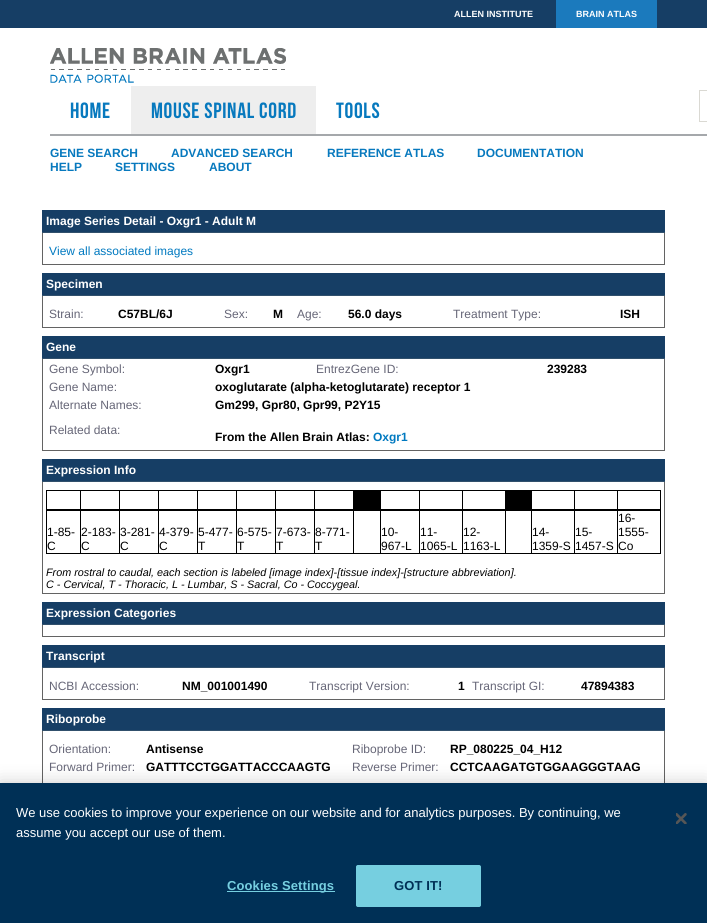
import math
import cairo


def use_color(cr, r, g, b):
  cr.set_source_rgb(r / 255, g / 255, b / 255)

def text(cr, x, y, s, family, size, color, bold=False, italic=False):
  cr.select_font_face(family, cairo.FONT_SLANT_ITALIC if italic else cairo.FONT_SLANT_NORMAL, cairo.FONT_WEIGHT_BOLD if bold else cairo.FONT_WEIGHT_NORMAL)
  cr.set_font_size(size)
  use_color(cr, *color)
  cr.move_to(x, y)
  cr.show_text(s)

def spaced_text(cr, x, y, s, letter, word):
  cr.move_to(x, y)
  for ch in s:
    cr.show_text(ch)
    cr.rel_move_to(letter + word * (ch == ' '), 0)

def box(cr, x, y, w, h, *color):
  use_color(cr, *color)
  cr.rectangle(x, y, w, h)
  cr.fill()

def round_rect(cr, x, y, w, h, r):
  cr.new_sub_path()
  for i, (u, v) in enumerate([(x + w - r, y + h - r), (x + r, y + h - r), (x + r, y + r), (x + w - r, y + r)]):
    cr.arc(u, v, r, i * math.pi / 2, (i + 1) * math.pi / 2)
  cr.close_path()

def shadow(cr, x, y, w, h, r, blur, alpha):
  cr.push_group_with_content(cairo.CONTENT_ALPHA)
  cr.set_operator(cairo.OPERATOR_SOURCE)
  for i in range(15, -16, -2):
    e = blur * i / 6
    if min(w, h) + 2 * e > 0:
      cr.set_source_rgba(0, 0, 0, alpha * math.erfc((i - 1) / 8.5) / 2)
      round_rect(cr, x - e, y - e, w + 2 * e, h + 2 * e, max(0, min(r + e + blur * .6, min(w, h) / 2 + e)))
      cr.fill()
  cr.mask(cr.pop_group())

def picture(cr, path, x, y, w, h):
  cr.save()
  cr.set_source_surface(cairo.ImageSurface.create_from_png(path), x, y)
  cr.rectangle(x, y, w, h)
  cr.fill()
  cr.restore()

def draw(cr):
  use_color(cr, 255, 255, 255)
  cr.paint()
  box(cr, 0, 0, 707, 28, 22, 62, 101)
  box(cr, 556, 0, 101, 28, 27, 122, 189)
  box(cr, 50, 134, 657, 2, 165, 168, 171)
  picture(cr, "img_01.png", 50, 48, 236, 35)
  box(cr, 131, 86, 185, 48, 238, 238, 238)
  cr.rectangle(699.5, 90.5, 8, 31)
  use_color(cr, 218, 217, 211)
  cr.set_line_width(1)
  cr.stroke()
  cr.rectangle(42.5, 210.5, 622, 54)
  use_color(cr, 99, 99, 99)
  cr.stroke()
  box(cr, 42, 210, 623, 22, 22, 62, 101)
  box(cr, 42, 232, 623, 1, 49, 80, 108)
  cr.rectangle(42.5, 273.5, 622, 54)
  use_color(cr, 99, 99, 99)
  cr.stroke()
  box(cr, 42, 273, 623, 22, 22, 62, 101)
  box(cr, 42, 295, 623, 1, 49, 80, 108)
  cr.rectangle(42.5, 336.5, 622, 114)
  use_color(cr, 99, 99, 99)
  cr.stroke()
  box(cr, 42, 336, 623, 22, 22, 62, 101)
  box(cr, 42, 358, 623, 1, 49, 80, 108)
  cr.rectangle(42.5, 459.5, 622, 134)
  use_color(cr, 99, 99, 99)
  cr.stroke()
  box(cr, 42, 459, 623, 22, 22, 62, 101)
  box(cr, 42, 481, 623, 1, 49, 80, 108)
  box(cr, 46, 490, 1, 64, 0, 0, 0)
  box(cr, 47, 490, 614, 1, 0, 0, 0)
  box(cr, 80, 490, 1, 20, 0, 0, 0)
  box(cr, 47, 509, 34, 2, 0, 0, 0)
  box(cr, 119, 490, 1, 20, 0, 0, 0)
  box(cr, 81, 509, 39, 2, 0, 0, 0)
  box(cr, 158, 490, 1, 20, 0, 0, 0)
  box(cr, 120, 509, 39, 2, 0, 0, 0)
  box(cr, 197, 490, 1, 20, 0, 0, 0)
  box(cr, 159, 509, 39, 2, 0, 0, 0)
  box(cr, 236, 490, 1, 20, 0, 0, 0)
  box(cr, 198, 509, 39, 2, 0, 0, 0)
  box(cr, 275, 490, 1, 20, 0, 0, 0)
  box(cr, 237, 509, 39, 2, 0, 0, 0)
  box(cr, 314, 490, 1, 20, 0, 0, 0)
  box(cr, 276, 509, 39, 2, 0, 0, 0)
  box(cr, 353, 490, 1, 20, 0, 0, 0)
  box(cr, 315, 509, 39, 2, 0, 0, 0)
  box(cr, 380, 490, 1, 20, 0, 0, 0)
  box(cr, 354, 509, 27, 2, 0, 0, 0)
  box(cr, 354, 491, 26, 18, 0, 0, 0)
  box(cr, 419, 490, 1, 20, 0, 0, 0)
  box(cr, 381, 509, 39, 2, 0, 0, 0)
  box(cr, 462, 490, 1, 20, 0, 0, 0)
  box(cr, 420, 509, 43, 2, 0, 0, 0)
  box(cr, 505, 490, 1, 20, 0, 0, 0)
  box(cr, 463, 509, 43, 2, 0, 0, 0)
  box(cr, 531, 490, 1, 20, 0, 0, 0)
  box(cr, 506, 509, 26, 2, 0, 0, 0)
  box(cr, 506, 491, 25, 18, 0, 0, 0)
  box(cr, 574, 490, 1, 20, 0, 0, 0)
  box(cr, 532, 509, 43, 2, 0, 0, 0)
  box(cr, 617, 490, 1, 20, 0, 0, 0)
  box(cr, 575, 509, 43, 2, 0, 0, 0)
  box(cr, 660, 490, 1, 20, 0, 0, 0)
  box(cr, 618, 509, 43, 2, 0, 0, 0)
  box(cr, 80, 510, 1, 44, 0, 0, 0)
  box(cr, 47, 553, 34, 1, 0, 0, 0)
  box(cr, 119, 510, 1, 44, 0, 0, 0)
  box(cr, 81, 553, 39, 1, 0, 0, 0)
  box(cr, 158, 510, 1, 44, 0, 0, 0)
  box(cr, 120, 553, 39, 1, 0, 0, 0)
  box(cr, 197, 510, 1, 44, 0, 0, 0)
  box(cr, 159, 553, 39, 1, 0, 0, 0)
  box(cr, 236, 510, 1, 44, 0, 0, 0)
  box(cr, 198, 553, 39, 1, 0, 0, 0)
  box(cr, 275, 510, 1, 44, 0, 0, 0)
  box(cr, 237, 553, 39, 1, 0, 0, 0)
  box(cr, 314, 510, 1, 44, 0, 0, 0)
  box(cr, 276, 553, 39, 1, 0, 0, 0)
  box(cr, 353, 510, 1, 44, 0, 0, 0)
  box(cr, 315, 553, 39, 1, 0, 0, 0)
  box(cr, 380, 510, 1, 44, 0, 0, 0)
  box(cr, 354, 553, 27, 1, 0, 0, 0)
  box(cr, 419, 510, 1, 44, 0, 0, 0)
  box(cr, 381, 553, 39, 1, 0, 0, 0)
  box(cr, 462, 510, 1, 44, 0, 0, 0)
  box(cr, 420, 553, 43, 1, 0, 0, 0)
  box(cr, 505, 510, 1, 44, 0, 0, 0)
  box(cr, 463, 553, 43, 1, 0, 0, 0)
  box(cr, 531, 510, 1, 44, 0, 0, 0)
  box(cr, 506, 553, 26, 1, 0, 0, 0)
  box(cr, 574, 510, 1, 44, 0, 0, 0)
  box(cr, 532, 553, 43, 1, 0, 0, 0)
  box(cr, 617, 510, 1, 44, 0, 0, 0)
  box(cr, 575, 553, 43, 1, 0, 0, 0)
  box(cr, 660, 510, 1, 44, 0, 0, 0)
  box(cr, 618, 553, 43, 1, 0, 0, 0)
  cr.rectangle(42.5, 602.5, 622, 34)
  use_color(cr, 99, 99, 99)
  cr.stroke()
  box(cr, 42, 602, 623, 22, 22, 62, 101)
  box(cr, 42, 624, 623, 1, 49, 80, 108)
  cr.rectangle(42.5, 645.5, 622, 54)
  use_color(cr, 99, 99, 99)
  cr.stroke()
  box(cr, 42, 645, 623, 22, 22, 62, 101)
  box(cr, 42, 667, 623, 1, 49, 80, 108)
  cr.rectangle(42.5, 708.5, 622, 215)
  use_color(cr, 99, 99, 99)
  cr.stroke()
  box(cr, 42, 708, 623, 22, 22, 62, 101)
  box(cr, 42, 730, 623, 1, 49, 80, 108)
  use_color(cr, 0, 0, 0)
  shadow(cr, 0, 783, 707, 140, 0, 9, 0.2)
  box(cr, 0, 783, 707, 140, 0, 48, 86)
  picture(cr, "img_02.png", 676, 813, 11, 11)
  box(cr, 227, 891, 108, 1, 118, 207, 224)
  round_rect(cr, 356.5, 865.5, 124, 41, 1.5)
  cr.fill_preserve()
  cr.stroke()
  text(cr, 454, 17, "ALLEN INSTITUTE", "Liberation Sans", 9, (255, 255, 255), bold=True)
  text(cr, 576, 17, "BRAIN ATLAS", "Liberation Sans", 9, (255, 255, 255), bold=True)
  cr.select_font_face("Bebas Neue")
  cr.set_font_size(22)
  use_color(cr, 7, 121, 190)
  spaced_text(cr, 70, 118, "HOME", 0.7, 0)
  spaced_text(cr, 151, 118, "Mouse Spinal Cord", 0.7, 0)
  spaced_text(cr, 336, 118, "TOOLS", 0.7, 0)
  text(cr, 50, 157, "GENE SEARCH", "Liberation Sans", 12, (7, 121, 190), bold=True)
  text(cr, 171, 157, "ADVANCED SEARCH", "Liberation Sans", 12, (7, 121, 190), bold=True)
  text(cr, 327, 157, "REFERENCE ATLAS", "Liberation Sans", 12, (7, 121, 190), bold=True)
  text(cr, 477, 157, "DOCUMENTATION", "Liberation Sans", 12, (7, 121, 190), bold=True)
  text(cr, 50, 171, "HELP", "Liberation Sans", 12, (7, 121, 190), bold=True)
  text(cr, 115, 171, "SETTINGS", "Liberation Sans", 12, (7, 121, 190), bold=True)
  text(cr, 209, 171, "ABOUT", "Liberation Sans", 12, (7, 121, 190), bold=True)
  text(cr, 46, 225, "Image Series Detail - Oxgr1 - Adult M", "Liberation Sans", 12, (255, 255, 255), bold=True)
  text(cr, 49, 255, "View all associated images", "Liberation Sans", 12, (0, 121, 192))
  text(cr, 46, 288, "Specimen", "Liberation Sans", 12, (255, 255, 255), bold=True)
  text(cr, 49, 318, "Strain:", "Liberation Sans", 12, (102, 102, 119))
  text(cr, 118, 318, "C57BL/6J", "Liberation Sans", 12, (0, 0, 0), bold=True)
  text(cr, 224, 318, "Sex:", "Liberation Sans", 12, (102, 102, 119))
  text(cr, 273, 318, "M", "Liberation Sans", 12, (0, 0, 0), bold=True)
  text(cr, 297, 318, "Age:", "Liberation Sans", 12, (102, 102, 119))
  text(cr, 348, 318, "56.0 days", "Liberation Sans", 12, (0, 0, 0), bold=True)
  text(cr, 453, 318, "Treatment Type:", "Liberation Sans", 12, (102, 102, 119))
  text(cr, 620, 318, "ISH", "Liberation Sans", 12, (0, 0, 0), bold=True)
  text(cr, 46, 351, "Gene", "Liberation Sans", 12, (255, 255, 255), bold=True)
  text(cr, 49, 373, "Gene Symbol:", "Liberation Sans", 12, (102, 102, 119))
  text(cr, 215, 373, "Oxgr1", "Liberation Sans", 12, (0, 0, 0), bold=True)
  text(cr, 316, 373, "EntrezGene ID:", "Liberation Sans", 12, (102, 102, 119))
  text(cr, 547, 373, "239283", "Liberation Sans", 12, (0, 0, 0), bold=True)
  text(cr, 49, 391, "Gene Name:", "Liberation Sans", 12, (102, 102, 119))
  text(cr, 215, 391, "oxoglutarate (alpha-ketoglutarate) receptor 1", "Liberation Sans", 12, (0, 0, 0), bold=True)
  text(cr, 49, 409, "Alternate Names:", "Liberation Sans", 12, (102, 102, 119))
  text(cr, 215, 409, "Gm299, Gpr80, Gpr99, P2Y15", "Liberation Sans", 12, (0, 0, 0), bold=True)
  text(cr, 49, 434, "Related data:", "Liberation Sans", 12, (102, 102, 119))
  text(cr, 215, 441, "From the Allen Brain Atlas:", "Liberation Sans", 12, (0, 0, 0), bold=True)
  text(cr, 373, 441, "Oxgr1", "Liberation Sans", 12, (0, 121, 192), bold=True)
  text(cr, 46, 474, "Expression Info", "Liberation Sans", 12, (255, 255, 255), bold=True)
  text(cr, 47, 536, "1-85-", "Liberation Sans", 12, (0, 0, 0))
  text(cr, 47, 550, "C", "Liberation Sans", 12, (0, 0, 0))
  text(cr, 81, 536, "2-183-", "Liberation Sans", 12, (0, 0, 0))
  text(cr, 81, 550, "C", "Liberation Sans", 12, (0, 0, 0))
  text(cr, 120, 536, "3-281-", "Liberation Sans", 12, (0, 0, 0))
  text(cr, 120, 550, "C", "Liberation Sans", 12, (0, 0, 0))
  text(cr, 159, 536, "4-379-", "Liberation Sans", 12, (0, 0, 0))
  text(cr, 159, 550, "C", "Liberation Sans", 12, (0, 0, 0))
  text(cr, 198, 536, "5-477-", "Liberation Sans", 12, (0, 0, 0))
  text(cr, 198, 550, "T", "Liberation Sans", 12, (0, 0, 0))
  text(cr, 237, 536, "6-575-", "Liberation Sans", 12, (0, 0, 0))
  text(cr, 237, 550, "T", "Liberation Sans", 12, (0, 0, 0))
  text(cr, 276, 536, "7-673-", "Liberation Sans", 12, (0, 0, 0))
  text(cr, 276, 550, "T", "Liberation Sans", 12, (0, 0, 0))
  text(cr, 315, 536, "8-771-", "Liberation Sans", 12, (0, 0, 0))
  text(cr, 315, 550, "T", "Liberation Sans", 12, (0, 0, 0))
  text(cr, 381, 536, "10-", "Liberation Sans", 12, (0, 0, 0))
  text(cr, 381, 550, "967-L", "Liberation Sans", 12, (0, 0, 0))
  text(cr, 420, 536, "11-", "Liberation Sans", 12, (0, 0, 0))
  text(cr, 420, 550, "1065-L", "Liberation Sans", 12, (0, 0, 0))
  text(cr, 463, 536, "12-", "Liberation Sans", 12, (0, 0, 0))
  text(cr, 463, 550, "1163-L", "Liberation Sans", 12, (0, 0, 0))
  text(cr, 532, 536, "14-", "Liberation Sans", 12, (0, 0, 0))
  text(cr, 532, 550, "1359-S", "Liberation Sans", 12, (0, 0, 0))
  text(cr, 575, 536, "15-", "Liberation Sans", 12, (0, 0, 0))
  text(cr, 575, 550, "1457-S", "Liberation Sans", 12, (0, 0, 0))
  text(cr, 618, 522, "16-", "Liberation Sans", 12, (0, 0, 0))
  text(cr, 618, 536, "1555-", "Liberation Sans", 12, (0, 0, 0))
  text(cr, 618, 550, "Co", "Liberation Sans", 12, (0, 0, 0))
  text(cr, 46, 576, "From rostral to caudal, each section is labeled [image index]-[tissue index]-[structure abbreviation].", "Liberation Sans", 10.8, (0, 0, 0), italic=True)
  text(cr, 46, 588, "C - Cervical, T - Thoracic, L - Lumbar, S - Sacral, Co - Coccygeal.", "Liberation Sans", 10.8, (0, 0, 0), italic=True)
  text(cr, 46, 617, "Expression Categories", "Liberation Sans", 12, (255, 255, 255), bold=True)
  text(cr, 46, 660, "Transcript", "Liberation Sans", 12, (255, 255, 255), bold=True)
  text(cr, 49, 690, "NCBI Accession:", "Liberation Sans", 12, (102, 102, 119))
  text(cr, 182, 690, "NM_001001490", "Liberation Sans", 12, (0, 0, 0), bold=True)
  text(cr, 309, 690, "Transcript Version:", "Liberation Sans", 12, (102, 102, 119))
  text(cr, 458, 690, "1", "Liberation Sans", 12, (0, 0, 0), bold=True)
  text(cr, 472, 690, "Transcript GI:", "Liberation Sans", 12, (102, 102, 119))
  text(cr, 581, 690, "47894383", "Liberation Sans", 12, (0, 0, 0), bold=True)
  text(cr, 46, 723, "Riboprobe", "Liberation Sans", 12, (255, 255, 255), bold=True)
  text(cr, 49, 753, "Orientation:", "Liberation Sans", 12, (102, 102, 119))
  text(cr, 146, 753, "Antisense", "Liberation Sans", 12, (0, 0, 0), bold=True)
  text(cr, 352, 753, "Riboprobe ID:", "Liberation Sans", 12, (102, 102, 119))
  text(cr, 450, 753, "RP_080225_04_H12", "Liberation Sans", 12, (0, 0, 0), bold=True)
  text(cr, 49, 771, "Forward Primer:", "Liberation Sans", 12, (102, 102, 119))
  text(cr, 146, 771, "GATTTCCTGGATTACCCAAGTG", "Liberation Sans", 12, (0, 0, 0), bold=True)
  text(cr, 352, 771, "Reverse Primer:", "Liberation Sans", 12, (102, 102, 119))
  text(cr, 450, 771, "CCTCAAGATGTGGAAGGGTAAG", "Liberation Sans", 12, (0, 0, 0), bold=True)
  text(cr, 16, 817, "We use cookies to improve your experience on our website and for analytics purposes. By continuing, we", "Liberation Sans", 13, (255, 255, 255))
  text(cr, 16, 837, "assume you accept our use of them.", "Liberation Sans", 13, (255, 255, 255))
  cr.select_font_face("Liberation Sans", cairo.FONT_SLANT_NORMAL, cairo.FONT_WEIGHT_BOLD)
  use_color(cr, 118, 207, 224)
  spaced_text(cr, 227, 890, "Cookies Settings", 0.1, 0)
  use_color(cr, 0, 48, 86)
  spaced_text(cr, 394, 890, "GOT IT!", 0.1, 0)


surface = cairo.ImageSurface(cairo.FORMAT_RGB24, 707, 923)
cr = cairo.Context(surface)
options = cairo.FontOptions()
options.set_hint_metrics(cairo.HINT_METRICS_OFF)
options.set_hint_style(cairo.HINT_STYLE_NONE)
cr.set_font_options(options)
cr.set_miter_limit(4)
draw(cr)
surface.write_to_png("out.png")
